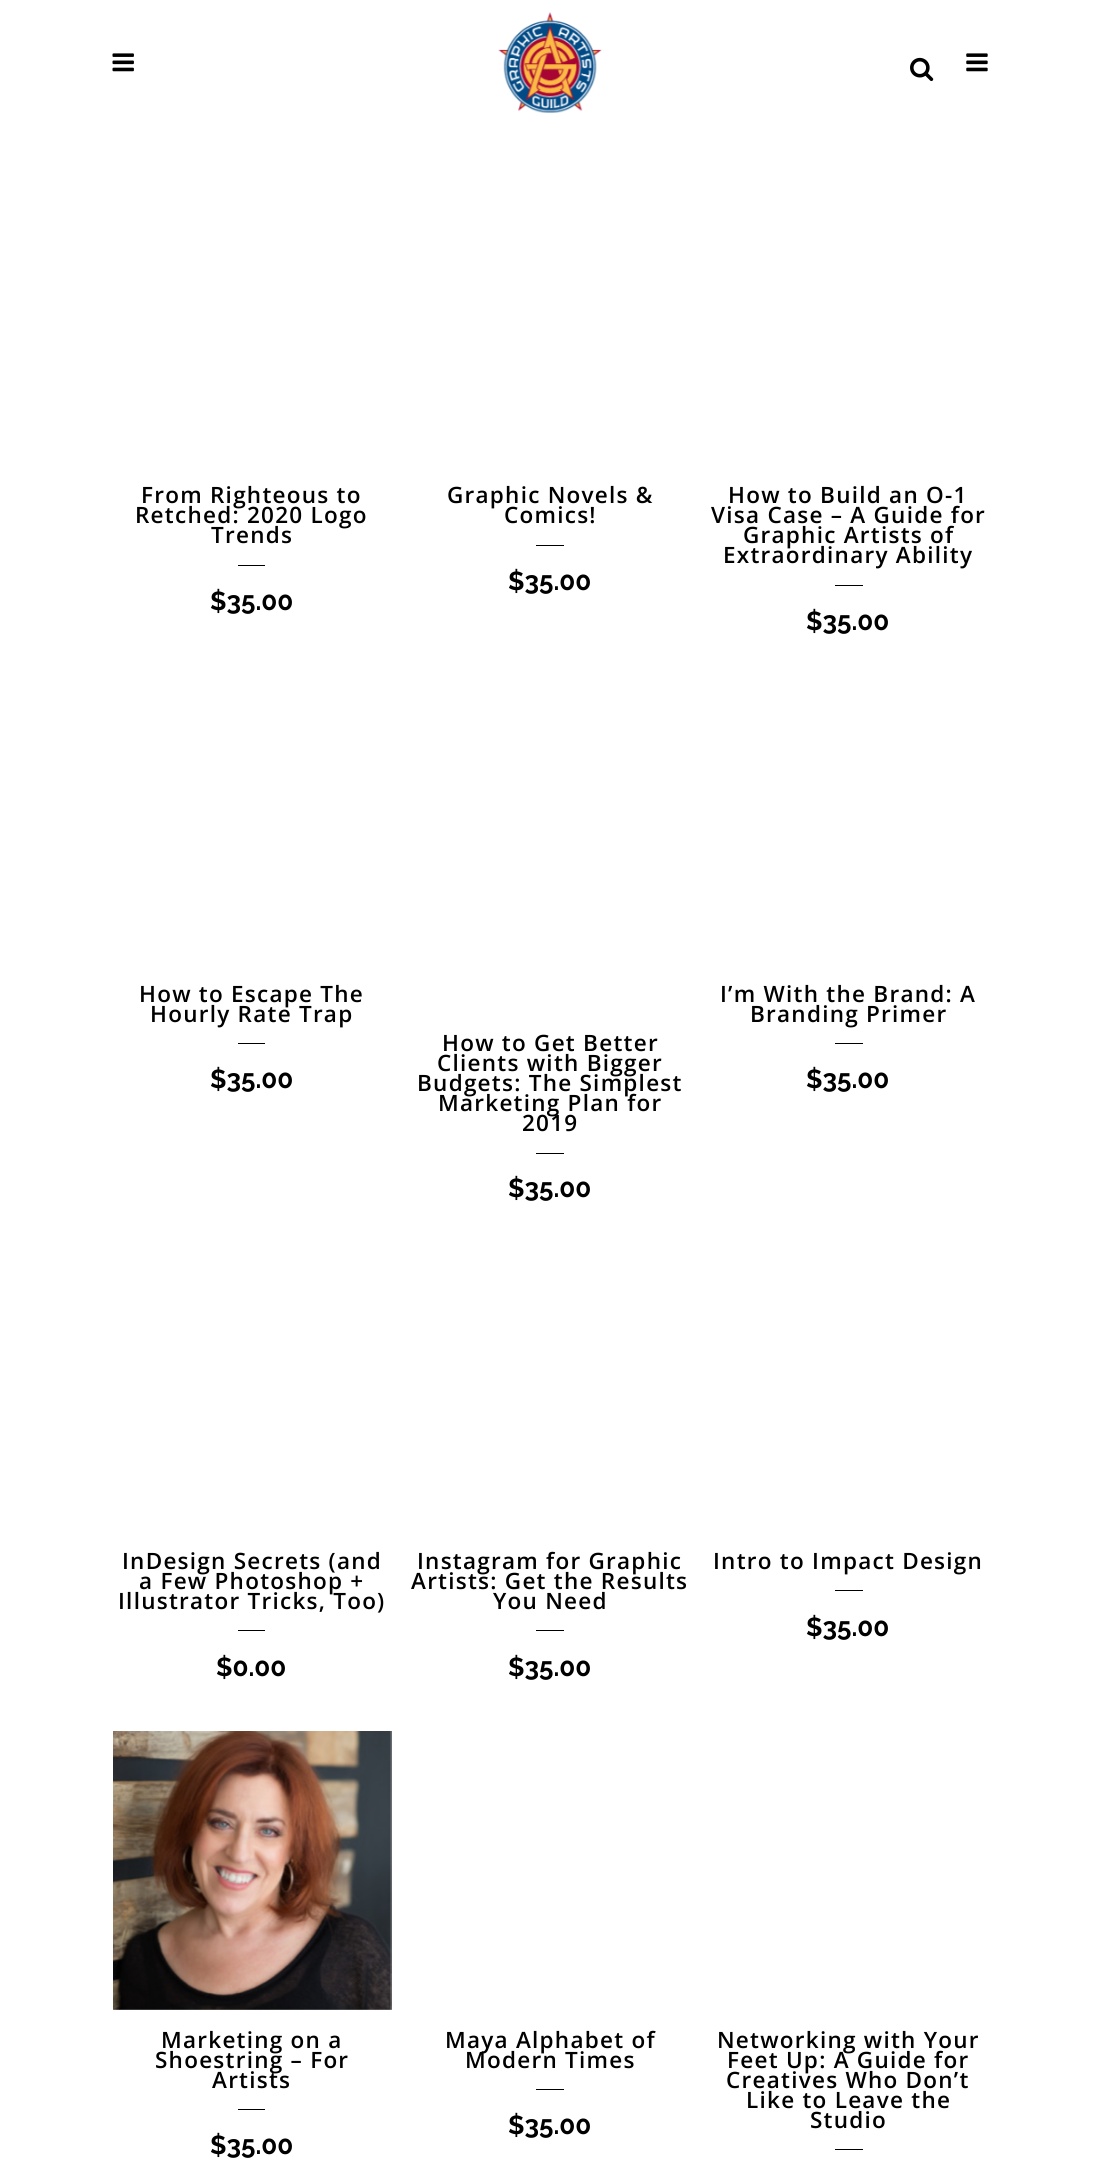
import math
import cairo


def use_color(cr, r, g, b):
  cr.set_source_rgb(r / 255, g / 255, b / 255)

def text(cr, x, y, s, family, size, color, bold=False, italic=False):
  cr.select_font_face(family, cairo.FONT_SLANT_ITALIC if italic else cairo.FONT_SLANT_NORMAL, cairo.FONT_WEIGHT_BOLD if bold else cairo.FONT_WEIGHT_NORMAL)
  cr.set_font_size(size)
  use_color(cr, *color)
  cr.move_to(x, y)
  cr.show_text(s)

def spaced_text(cr, x, y, s, letter, word):
  cr.move_to(x, y)
  for ch in s:
    cr.show_text(ch)
    cr.rel_move_to(letter + word * (ch == ' '), 0)

def box(cr, x, y, w, h, *color):
  use_color(cr, *color)
  cr.rectangle(x, y, w, h)
  cr.fill()

def picture(cr, path, x, y, w, h):
  cr.save()
  cr.set_source_surface(cairo.ImageSurface.create_from_png(path), x, y)
  cr.rectangle(x, y, w, h)
  cr.fill()
  cr.restore()

def draw(cr):
  use_color(cr, 255, 255, 255)
  cr.paint()
  picture(cr, "img_01.png", 112, 53, 22, 19)
  picture(cr, "img_02.png", 498, 12, 104, 101)
  picture(cr, "img_03.png", 910, 57, 24, 25)
  picture(cr, "img_04.png", 966, 53, 22, 19)
  box(cr, 238, 565, 27, 1, 0, 0, 0)
  box(cr, 536, 545, 28, 1, 0, 0, 0)
  box(cr, 835, 585, 28, 1, 0, 0, 0)
  box(cr, 238, 1043, 27, 1, 0, 0, 0)
  box(cr, 536, 1153, 28, 1, 0, 0, 0)
  box(cr, 835, 1043, 28, 1, 0, 0, 0)
  box(cr, 238, 1630, 27, 1, 0, 0, 0)
  box(cr, 536, 1630, 28, 1, 0, 0, 0)
  box(cr, 835, 1590, 28, 1, 0, 0, 0)
  picture(cr, "img_05.png", 113, 1731, 279, 279)
  box(cr, 238, 2109, 27, 1, 0, 0, 0)
  box(cr, 536, 2089, 28, 1, 0, 0, 0)
  box(cr, 835, 2149, 28, 1, 0, 0, 0)
  cr.select_font_face("Open Sans SemiBold")
  cr.set_font_size(22.5)
  spaced_text(cr, 141, 503, "From Righteous to", 1.25, 0)
  spaced_text(cr, 135, 523, "Retched: 2020 Logo", 1.25, 0)
  spaced_text(cr, 211, 543, "Trends", 1.25, 0)
  text(cr, 210, 610, "$35.00", "Raleway", 26, (0, 0, 0), bold=True)
  cr.select_font_face("Open Sans SemiBold")
  cr.set_font_size(22.5)
  spaced_text(cr, 447, 503, "Graphic Novels &", 1.25, 0)
  spaced_text(cr, 504, 523, "Comics!", 1.25, 0)
  text(cr, 508, 590, "$35.00", "Raleway", 26, (0, 0, 0), bold=True)
  cr.select_font_face("Open Sans SemiBold")
  cr.set_font_size(22.5)
  spaced_text(cr, 728, 503, "How to Build an O-1", 1.25, 0)
  spaced_text(cr, 711, 523, "Visa Case – A Guide for", 1.25, 0)
  spaced_text(cr, 743, 543, "Graphic Artists of", 1.25, 0)
  spaced_text(cr, 723, 563, "Extraordinary Ability", 1.25, 0)
  text(cr, 806, 630, "$35.00", "Raleway", 26, (0, 0, 0), bold=True)
  cr.select_font_face("Open Sans SemiBold")
  cr.set_font_size(22.5)
  spaced_text(cr, 139, 1002, "How to Escape The", 1.25, 0)
  spaced_text(cr, 150, 1022, "Hourly Rate Trap", 1.25, 0)
  text(cr, 210, 1088, "$35.00", "Raleway", 26, (0, 0, 0), bold=True)
  cr.select_font_face("Open Sans SemiBold")
  cr.set_font_size(22.5)
  spaced_text(cr, 442, 1051, "How to Get Better", 1.25, 0)
  spaced_text(cr, 437, 1071, "Clients with Bigger", 1.25, 0)
  spaced_text(cr, 417, 1091, "Budgets: The Simplest", 1.25, 0)
  spaced_text(cr, 438, 1111, "Marketing Plan for", 1.25, 0)
  spaced_text(cr, 522, 1131, "2019", 1.25, 0)
  text(cr, 508, 1197, "$35.00", "Raleway", 26, (0, 0, 0), bold=True)
  cr.select_font_face("Open Sans SemiBold")
  cr.set_font_size(22.5)
  spaced_text(cr, 720, 1002, "I’m With the Brand: A", 1.25, 0)
  spaced_text(cr, 750, 1022, "Branding Primer", 1.25, 0)
  text(cr, 806, 1088, "$35.00", "Raleway", 26, (0, 0, 0), bold=True)
  cr.select_font_face("Open Sans SemiBold")
  cr.set_font_size(22.5)
  spaced_text(cr, 122, 1569, "InDesign Secrets (and", 1.25, 0)
  spaced_text(cr, 139, 1589, "a Few Photoshop +", 1.25, 0)
  spaced_text(cr, 118, 1609, "Illustrator Tricks, Too)", 1.25, 0)
  text(cr, 216, 1676, "$0.00", "Raleway", 26, (0, 0, 0), bold=True)
  cr.select_font_face("Open Sans SemiBold")
  cr.set_font_size(22.5)
  spaced_text(cr, 417, 1569, "Instagram for Graphic", 1.25, 0)
  spaced_text(cr, 411, 1589, "Artists: Get the Results", 1.25, 0)
  spaced_text(cr, 493, 1609, "You Need", 1.25, 0)
  text(cr, 508, 1676, "$35.00", "Raleway", 26, (0, 0, 0), bold=True)
  cr.select_font_face("Open Sans SemiBold")
  cr.set_font_size(22.5)
  spaced_text(cr, 713, 1569, "Intro to Impact Design", 1.25, 0)
  text(cr, 806, 1636, "$35.00", "Raleway", 26, (0, 0, 0), bold=True)
  cr.select_font_face("Open Sans SemiBold")
  cr.set_font_size(22.5)
  spaced_text(cr, 161, 2048, "Marketing on a", 1.25, 0)
  spaced_text(cr, 155, 2068, "Shoestring – For", 1.25, 0)
  spaced_text(cr, 212, 2088, "Artists", 1.25, 0)
  text(cr, 210, 2154, "$35.00", "Raleway", 26, (0, 0, 0), bold=True)
  cr.select_font_face("Open Sans SemiBold")
  cr.set_font_size(22.5)
  spaced_text(cr, 445, 2048, "Maya Alphabet of", 1.25, 0)
  spaced_text(cr, 465, 2068, "Modern Times", 1.25, 0)
  text(cr, 508, 2134, "$35.00", "Raleway", 26, (0, 0, 0), bold=True)
  cr.select_font_face("Open Sans SemiBold")
  cr.set_font_size(22.5)
  spaced_text(cr, 717, 2048, "Networking with Your", 1.25, 0)
  spaced_text(cr, 727, 2068, "Feet Up: A Guide for", 1.25, 0)
  spaced_text(cr, 726, 2088, "Creatives Who Don’t", 1.25, 0)
  spaced_text(cr, 746, 2108, "Like to Leave the", 1.25, 0)
  spaced_text(cr, 810, 2128, "Studio", 1.25, 0)


surface = cairo.ImageSurface(cairo.FORMAT_RGB24, 1100, 2175)
cr = cairo.Context(surface)
options = cairo.FontOptions()
options.set_hint_metrics(cairo.HINT_METRICS_OFF)
options.set_hint_style(cairo.HINT_STYLE_NONE)
cr.set_font_options(options)
cr.set_miter_limit(4)
draw(cr)
surface.write_to_png("out.png")
